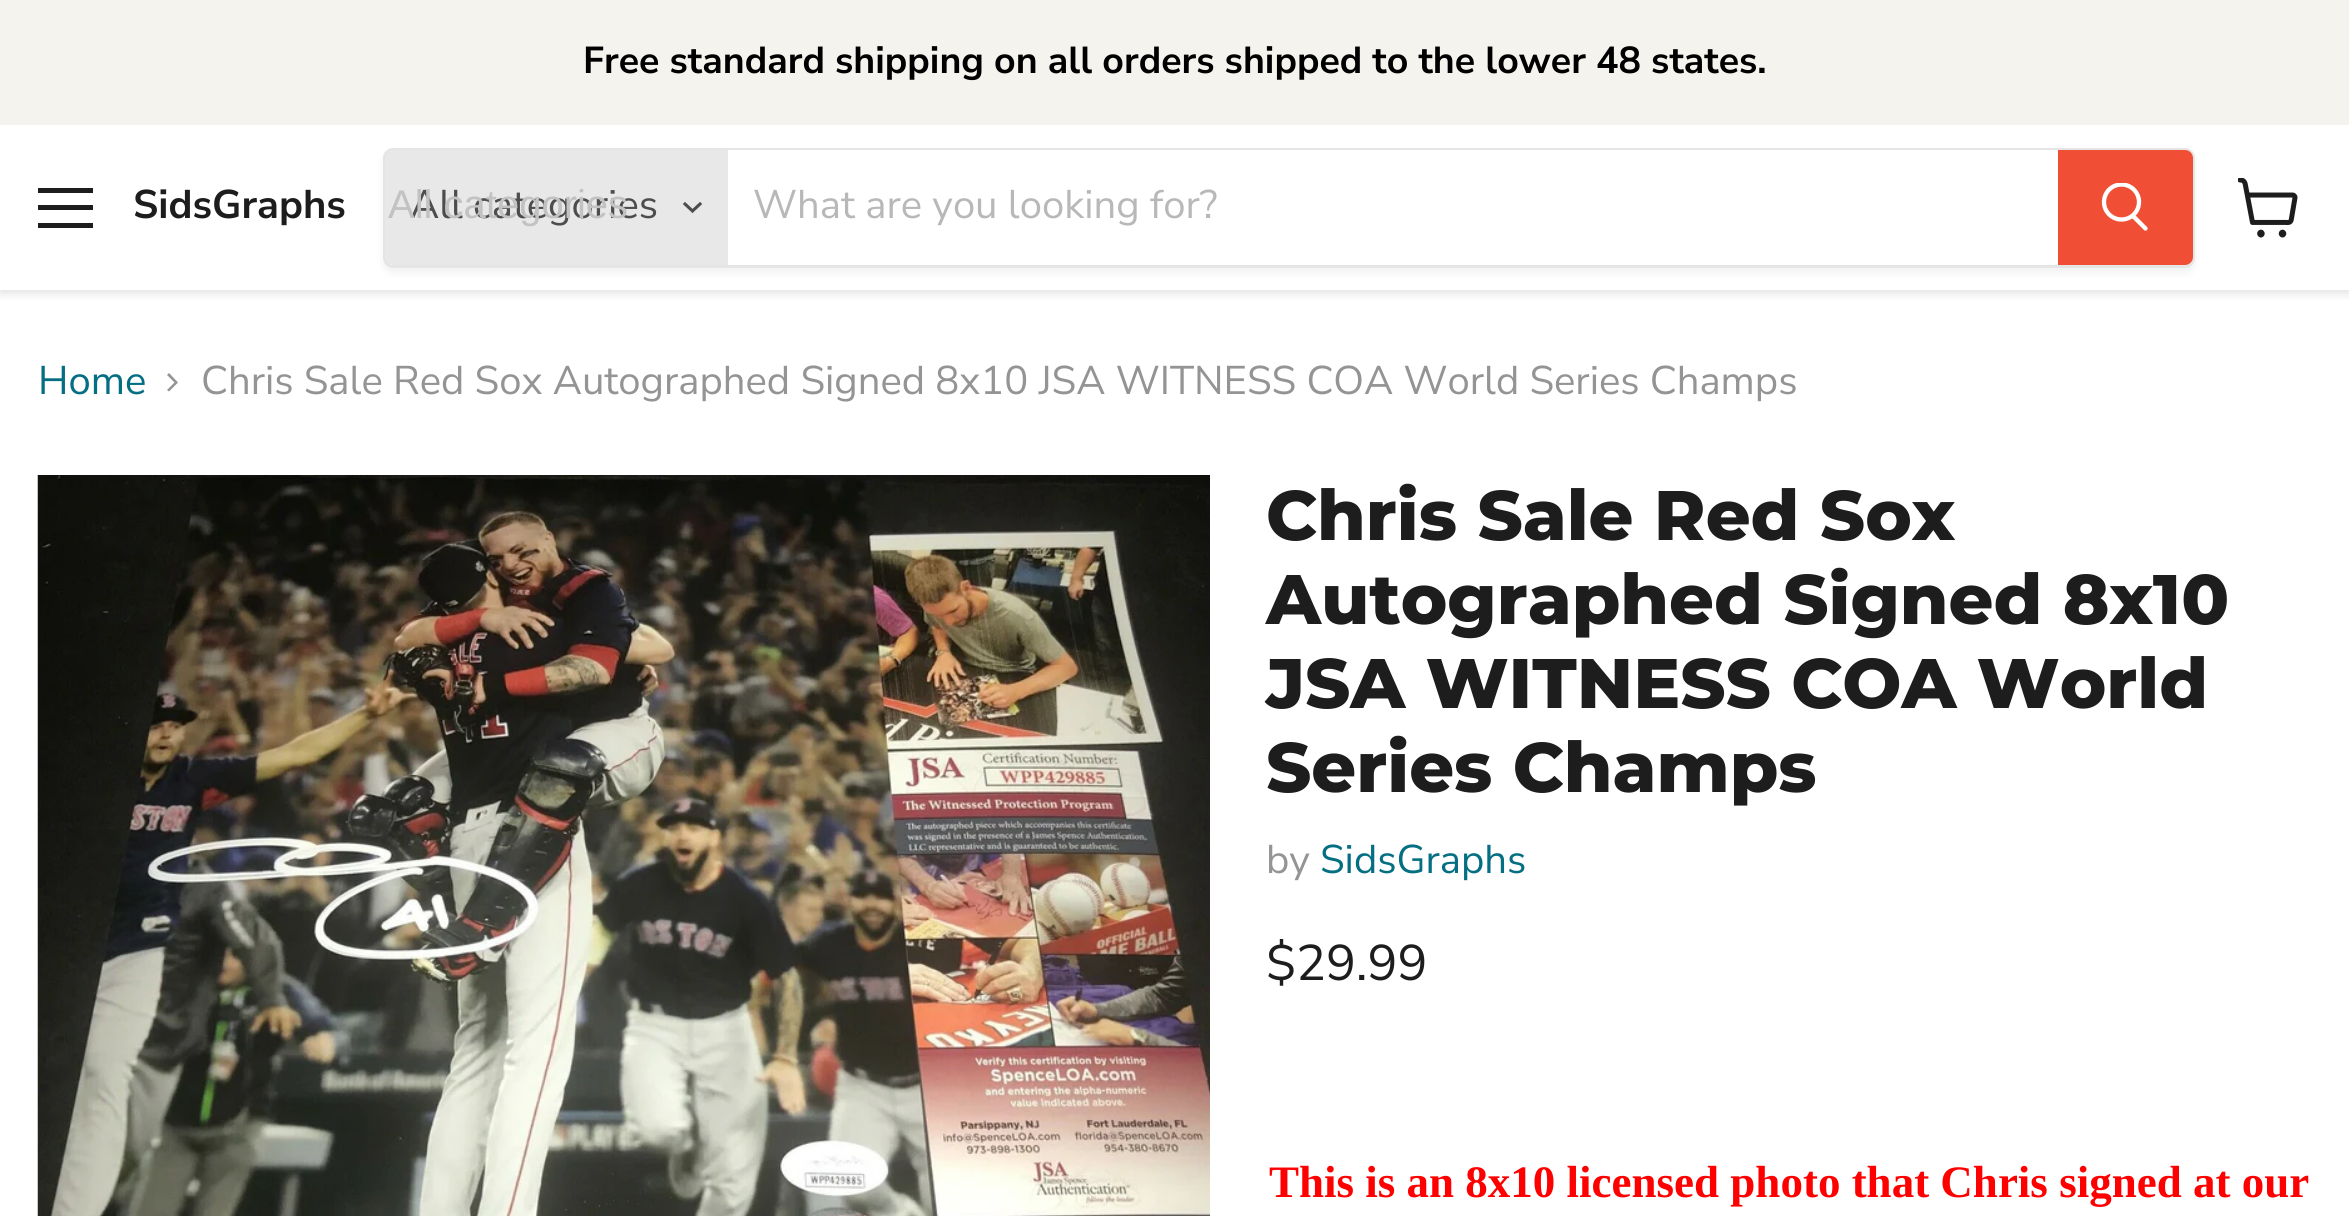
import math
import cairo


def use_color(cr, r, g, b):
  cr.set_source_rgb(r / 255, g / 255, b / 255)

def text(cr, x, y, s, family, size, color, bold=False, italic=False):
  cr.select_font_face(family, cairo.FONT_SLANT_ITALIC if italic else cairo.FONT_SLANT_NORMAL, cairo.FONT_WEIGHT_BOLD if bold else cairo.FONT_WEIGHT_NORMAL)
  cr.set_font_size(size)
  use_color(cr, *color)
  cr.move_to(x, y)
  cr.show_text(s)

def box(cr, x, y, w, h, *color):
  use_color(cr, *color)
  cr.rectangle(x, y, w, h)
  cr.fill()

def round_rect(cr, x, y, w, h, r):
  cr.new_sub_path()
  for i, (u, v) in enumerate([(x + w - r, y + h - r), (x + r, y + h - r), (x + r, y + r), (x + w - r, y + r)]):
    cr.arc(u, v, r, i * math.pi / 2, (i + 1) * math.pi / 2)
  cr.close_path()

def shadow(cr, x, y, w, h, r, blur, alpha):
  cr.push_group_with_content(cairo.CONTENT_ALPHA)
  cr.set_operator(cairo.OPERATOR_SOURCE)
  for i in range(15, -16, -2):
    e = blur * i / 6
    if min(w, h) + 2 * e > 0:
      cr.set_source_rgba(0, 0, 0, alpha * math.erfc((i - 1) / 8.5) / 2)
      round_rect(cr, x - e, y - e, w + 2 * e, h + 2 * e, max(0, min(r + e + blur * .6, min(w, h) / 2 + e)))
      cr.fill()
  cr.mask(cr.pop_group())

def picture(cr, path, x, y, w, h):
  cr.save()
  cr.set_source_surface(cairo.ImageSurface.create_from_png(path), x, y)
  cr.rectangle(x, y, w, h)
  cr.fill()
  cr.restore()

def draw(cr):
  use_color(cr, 255, 255, 255)
  cr.paint()
  cr.save()
  cr.rectangle(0, 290, 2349, 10)
  cr.clip()
  use_color(cr, 128, 128, 128)
  shadow(cr, 0, 128, 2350, 165, 0, 5, 0.25)
  cr.restore()
  box(cr, 0, 0, 2349, 125, 245, 243, 237)
  box(cr, 38, 188, 55, 5, 29, 29, 29)
  box(cr, 38, 205, 55, 5, 29, 29, 29)
  box(cr, 38, 223, 55, 5, 29, 29, 29)
  cr.save()
  cr.set_fill_rule(cairo.FILL_RULE_EVEN_ODD)
  cr.new_path()
  cr.move_to(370, 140)
  cr.line_to(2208, 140)
  cr.line_to(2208, 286)
  cr.line_to(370, 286)
  cr.close_path()
  cr.move_to(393, 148)
  cr.line_to(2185, 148)
  cr.curve_to(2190.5, 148, 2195, 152.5, 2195, 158)
  cr.line_to(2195, 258)
  cr.curve_to(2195, 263.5, 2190.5, 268, 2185, 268)
  cr.line_to(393, 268)
  cr.curve_to(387.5, 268, 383, 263.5, 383, 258)
  cr.line_to(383, 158)
  cr.curve_to(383, 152.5, 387.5, 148, 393, 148)
  cr.close_path()
  cr.clip()
  use_color(cr, 128, 128, 128)
  shadow(cr, 383, 153, 1812, 120, 10, 4, 0.11)
  cr.restore()
  round_rect(cr, 384.5, 149.5, 1809, 117, 8.5)
  cr.set_source_rgba(0.502, 0.502, 0.502, 0.2)
  cr.set_line_width(3)
  cr.stroke()
  use_color(cr, 232, 232, 232)
  cr.new_path()
  cr.move_to(393, 150)
  cr.line_to(728, 150)
  cr.line_to(728, 265)
  cr.line_to(393, 265)
  cr.curve_to(388.5, 265, 385, 261.5, 385, 257)
  cr.line_to(385, 158)
  cr.curve_to(385, 153.5, 388.5, 150, 393, 150)
  cr.close_path()
  cr.fill()
  cr.new_path()
  cr.move_to(692.5, 211)
  cr.line_to(700, 204)
  cr.move_to(692.5, 211)
  cr.line_to(685, 204)
  use_color(cr, 77, 77, 77)
  cr.set_line_width(3.1)
  cr.set_line_cap(cairo.LINE_CAP_SQUARE)
  cr.stroke()
  box(cr, 728, 150, 1330, 1, 255, 255, 255)
  use_color(cr, 240, 79, 54)
  cr.new_path()
  cr.move_to(2059.5, 151.5)
  cr.line_to(2185, 151.5)
  cr.curve_to(2188.5, 151.5, 2191.5, 154.5, 2191.5, 158)
  cr.line_to(2191.5, 257)
  cr.curve_to(2191.5, 260.5, 2188.5, 263.5, 2185, 263.5)
  cr.line_to(2059.5, 263.5)
  cr.close_path()
  cr.fill_preserve()
  cr.set_line_width(3)
  cr.set_line_cap(cairo.LINE_CAP_BUTT)
  cr.stroke()
  cr.new_path()
  cr.move_to(2145.5, 228.5)
  cr.line_to(2133.5, 216.5)
  use_color(cr, 255, 255, 255)
  cr.set_line_width(4.3)
  cr.set_line_cap(cairo.LINE_CAP_ROUND)
  cr.stroke()
  cr.save()
  cr.rectangle(2100, 183, 50, 52)
  cr.clip()
  cr.arc(2121.5, 202, 17.5, 0, 2 * math.pi)
  cr.set_line_cap(cairo.LINE_CAP_BUTT)
  cr.stroke()
  cr.restore()
  picture(cr, "img_01.png", 2238, 178, 60, 60)
  use_color(cr, 148, 148, 148)
  cr.set_fill_rule(cairo.FILL_RULE_EVEN_ODD)
  cr.new_path()
  cr.move_to(167, 390)
  cr.line_to(169, 391.5)
  cr.line_to(178, 382.5)
  cr.line_to(169, 373)
  cr.line_to(167, 375)
  cr.line_to(174.5, 382.5)
  cr.close_path()
  cr.fill()
  picture(cr, "img_02.png", 37, 475, 1173, 741)
  text(cr, 583, 73, "Free standard shipping on all orders shipped to the lower 48 states.", "Nunito Sans", 37.5, (0, 0, 0), bold=True)
  text(cr, 133, 218, "SidsGraphs", "Nunito Sans", 40, (29, 29, 29), bold=True)
  text(cr, 410, 218, "All categories", "Nunito Sans", 40, (77, 77, 77))
  text(cr, 388, 218, "All categories", "Liberation Sans", 40, (194, 194, 194))
  text(cr, 753, 218, "What are you looking for?", "Nunito Sans", 40, (184, 184, 184))
  text(cr, 38, 394, "Home", "Nunito Sans", 40, (4, 110, 130))
  text(cr, 201, 394, "Chris Sale Red Sox Autographed Signed 8x10 JSA WITNESS COA World Series Champs", "Nunito Sans", 40, (148, 148, 148))
  text(cr, 1266, 540, "Chris Sale Red Sox", "Montserrat ExtraBold", 70, (29, 29, 29))
  text(cr, 1266, 624, "Autographed Signed 8x10", "Montserrat ExtraBold", 70, (29, 29, 29))
  text(cr, 1266, 708, "JSA WITNESS COA World", "Montserrat ExtraBold", 70, (29, 29, 29))
  text(cr, 1266, 792, "Series Champs", "Montserrat ExtraBold", 70, (29, 29, 29))
  text(cr, 1266, 873, "by", "Nunito Sans", 40, (148, 148, 148))
  text(cr, 1320, 873, "SidsGraphs", "Nunito Sans", 40, (4, 110, 130))
  text(cr, 1266, 980, "$29.99", "Nunito Sans", 50, (29, 29, 29))
  text(cr, 1269, 1197, "This is an 8x10 licensed photo that Chris signed at our", "Liberation Serif", 45, (255, 0, 0), bold=True)


surface = cairo.ImageSurface(cairo.FORMAT_RGB24, 2349, 1216)
cr = cairo.Context(surface)
options = cairo.FontOptions()
options.set_hint_metrics(cairo.HINT_METRICS_OFF)
options.set_hint_style(cairo.HINT_STYLE_NONE)
cr.set_font_options(options)
cr.set_miter_limit(4)
draw(cr)
surface.write_to_png("out.png")
